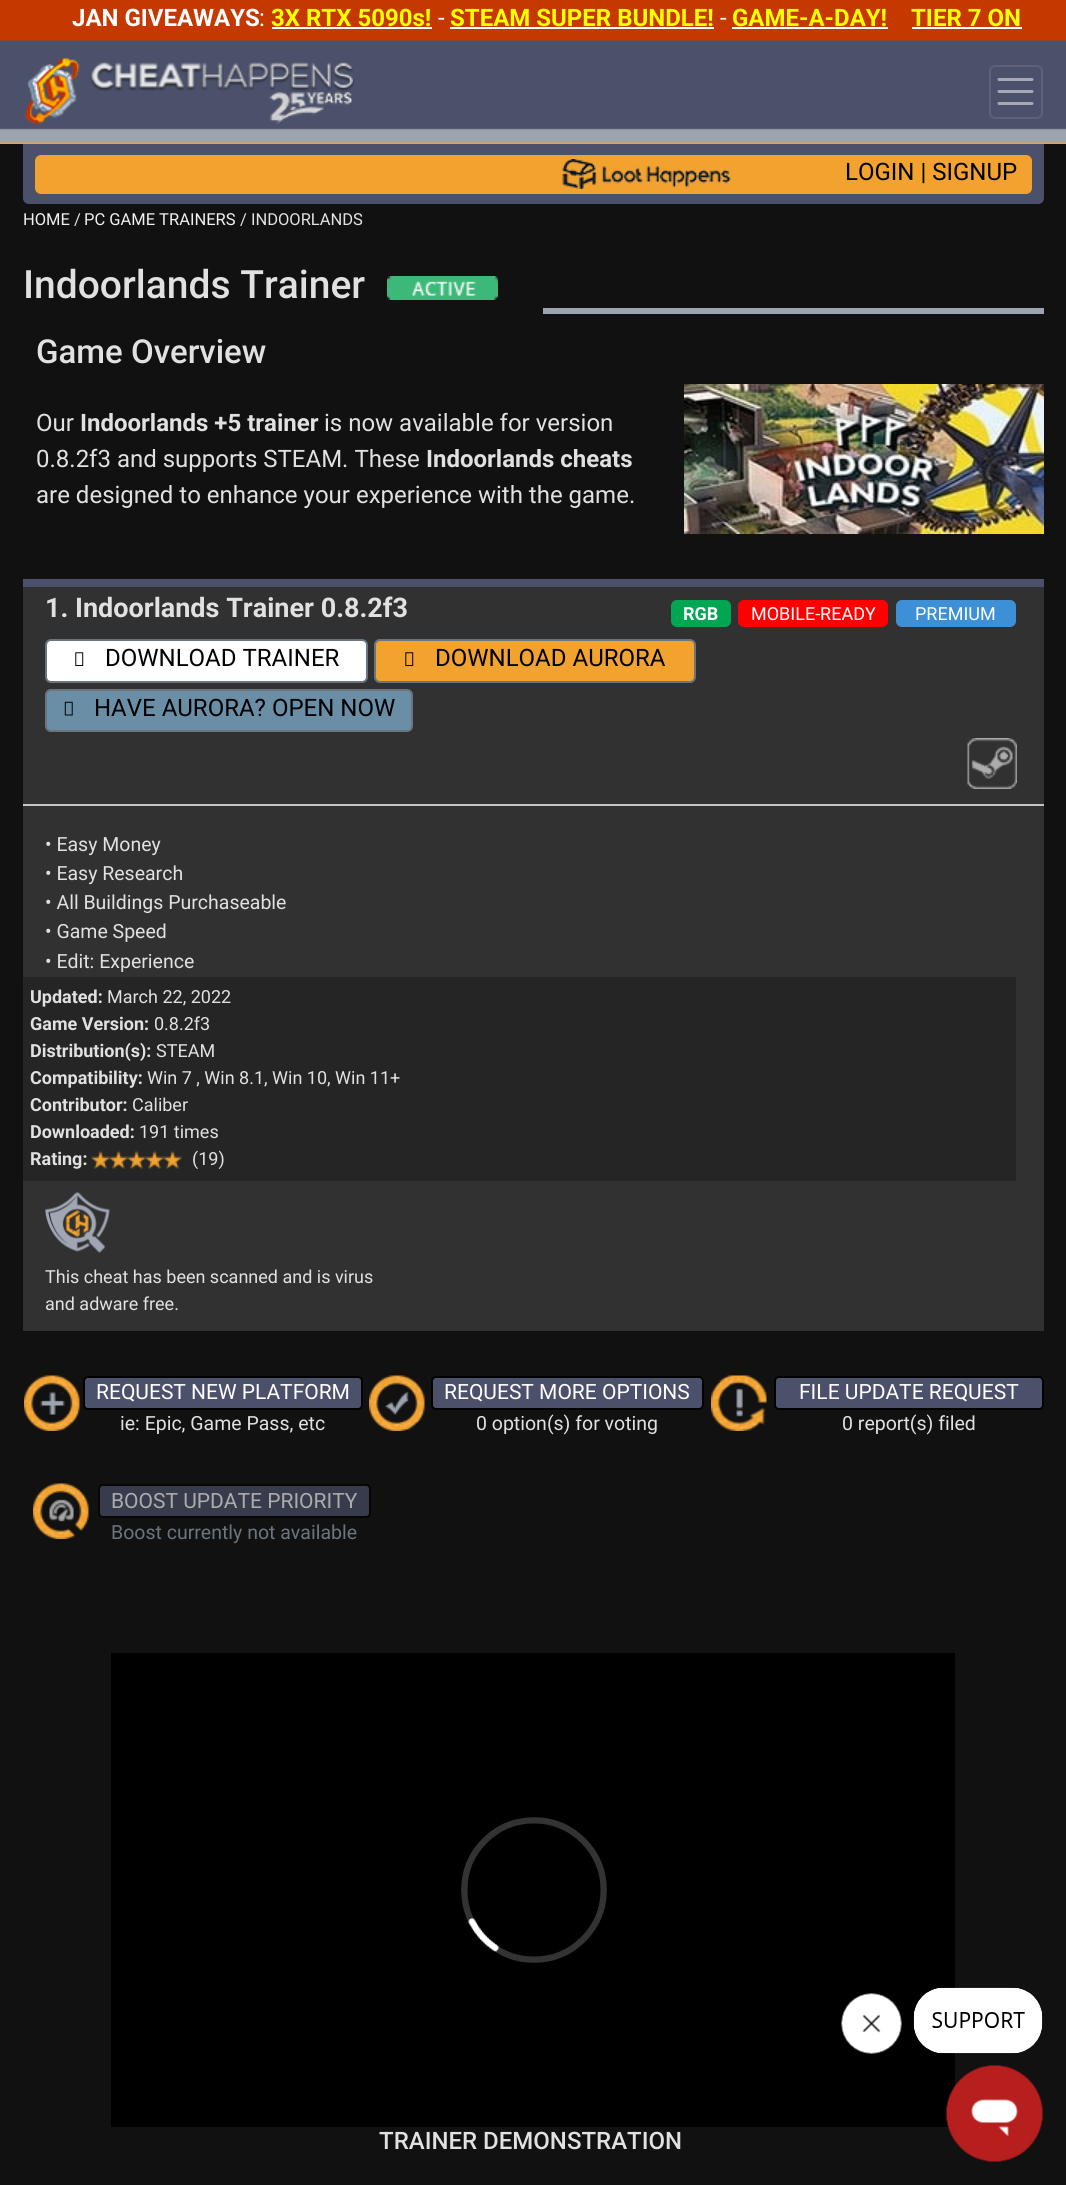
import math
import cairo


def use_color(cr, r, g, b):
  cr.set_source_rgb(r / 255, g / 255, b / 255)

def text(cr, x, y, s, family, size, color, bold=False, italic=False):
  cr.select_font_face(family, cairo.FONT_SLANT_ITALIC if italic else cairo.FONT_SLANT_NORMAL, cairo.FONT_WEIGHT_BOLD if bold else cairo.FONT_WEIGHT_NORMAL)
  cr.set_font_size(size)
  use_color(cr, *color)
  cr.move_to(x, y)
  cr.show_text(s)

def box(cr, x, y, w, h, *color):
  use_color(cr, *color)
  cr.rectangle(x, y, w, h)
  cr.fill()

def round_rect(cr, x, y, w, h, r):
  cr.new_sub_path()
  for i, (u, v) in enumerate([(x + w - r, y + h - r), (x + r, y + h - r), (x + r, y + r), (x + w - r, y + r)]):
    cr.arc(u, v, r, i * math.pi / 2, (i + 1) * math.pi / 2)
  cr.close_path()

def picture(cr, path, x, y, w, h):
  cr.save()
  cr.set_source_surface(cairo.ImageSurface.create_from_png(path), x, y)
  cr.rectangle(x, y, w, h)
  cr.fill()
  cr.restore()

def draw(cr):
  use_color(cr, 17, 17, 17)
  cr.paint()
  box(cr, 0, 0, 1066, 41, 197, 56, 0)
  box(cr, 272, 27, 160, 2, 255, 255, 255)
  box(cr, 450, 27, 264, 2, 255, 255, 255)
  box(cr, 732, 27, 156, 2, 255, 255, 255)
  box(cr, 912, 27, 110, 2, 255, 255, 255)
  picture(cr, "img_01.png", 0, 40, 1066, 104)
  picture(cr, "img_02.png", 25, 58, 329, 67)
  round_rect(cr, 990, 66, 52, 52, 5)
  use_color(cr, 93, 98, 122)
  cr.stroke()
  cr.new_path()
  cr.move_to(999, 79.5)
  cr.line_to(1032, 79.5)
  cr.move_to(999, 91.5)
  cr.line_to(1032, 91.5)
  cr.move_to(999, 103.5)
  cr.line_to(1032, 103.5)
  use_color(cr, 165, 168, 181)
  cr.set_line_width(3)
  cr.set_line_cap(cairo.LINE_CAP_ROUND)
  cr.stroke()
  use_color(cr, 75, 81, 107)
  cr.new_path()
  cr.move_to(23, 144)
  cr.line_to(1044, 144)
  cr.line_to(1044, 198)
  cr.curve_to(1044, 201.5, 1041.5, 204, 1038, 204)
  cr.line_to(29, 204)
  cr.curve_to(25.5, 204, 23, 201.5, 23, 198)
  cr.close_path()
  cr.fill()
  use_color(cr, 242, 162, 47)
  round_rect(cr, 35, 155, 997, 39, 6)
  cr.fill()
  picture(cr, "img_03.png", 562, 159, 169, 30)
  picture(cr, "img_04.png", 387, 276, 111, 24)
  box(cr, 543, 308, 501, 6, 157, 164, 176)
  picture(cr, "img_05.png", 684, 384, 360, 150)
  box(cr, 23, 587, 1021, 217, 49, 49, 49)
  box(cr, 23, 579, 1021, 8, 75, 81, 107)
  use_color(cr, 0, 166, 81)
  round_rect(cr, 671, 600, 60, 27, 6)
  cr.fill()
  use_color(cr, 255, 0, 0)
  round_rect(cr, 738, 600, 150, 27, 6)
  cr.fill()
  use_color(cr, 61, 144, 214)
  round_rect(cr, 896, 600, 120, 27, 6)
  cr.fill()
  use_color(cr, 255, 255, 255)
  round_rect(cr, 46, 640, 321, 42, 5)
  cr.fill_preserve()
  use_color(cr, 108, 117, 125)
  cr.set_line_width(2)
  cr.set_line_cap(cairo.LINE_CAP_BUTT)
  cr.stroke()
  picture(cr, "img_06.png", 75, 652, 9, 14)
  use_color(cr, 242, 162, 47)
  round_rect(cr, 375, 640, 320, 42, 5)
  cr.fill_preserve()
  use_color(cr, 108, 117, 125)
  cr.stroke()
  picture(cr, "img_07.png", 405, 652, 9, 14)
  use_color(cr, 106, 142, 165)
  round_rect(cr, 46, 690, 366, 41, 5)
  cr.fill_preserve()
  use_color(cr, 108, 117, 125)
  cr.stroke()
  picture(cr, "img_08.png", 64, 701, 9, 15)
  picture(cr, "img_09.png", 967, 738, 50, 51)
  box(cr, 23, 806, 1021, 525, 49, 49, 49)
  box(cr, 23, 804, 1021, 2, 196, 196, 196)
  box(cr, 23, 977, 993, 204, 37, 37, 37)
  picture(cr, "img_10.png", 91, 1150, 91, 19)
  picture(cr, "img_11.png", 45, 1192, 65, 61)
  picture(cr, "img_12.png", 24, 1375, 56, 56)
  use_color(cr, 75, 81, 107)
  round_rect(cr, 84, 1377, 278, 32, 4)
  cr.fill_preserve()
  use_color(cr, 0, 0, 0)
  cr.stroke()
  picture(cr, "img_13.png", 369, 1375, 56, 56)
  use_color(cr, 75, 81, 107)
  round_rect(cr, 432, 1377, 271, 32, 4)
  cr.fill_preserve()
  use_color(cr, 0, 0, 0)
  cr.stroke()
  picture(cr, "img_14.png", 711, 1375, 56, 56)
  use_color(cr, 75, 81, 107)
  round_rect(cr, 775, 1377, 268, 32, 4)
  cr.fill_preserve()
  use_color(cr, 0, 0, 0)
  cr.stroke()
  picture(cr, "img_15.png", 33, 1483, 56, 56)
  use_color(cr, 55, 59, 76)
  round_rect(cr, 99, 1485, 271, 32, 4)
  cr.fill_preserve()
  use_color(cr, 6, 6, 6)
  cr.stroke()
  picture(cr, "img_16.png", 111, 1653, 844, 474)
  picture(cr, "img_17.png", 841, 1993, 61, 61)
  picture(cr, "img_18.png", 913, 1987, 130, 67)
  picture(cr, "img_19.png", 946, 2065, 97, 97)
  text(cr, 72, 26, "JAN GIVEAWAYS", "Roboto", 24, (255, 255, 255), bold=True)
  text(cr, 259, 26, ":", "Roboto", 24, (255, 255, 255))
  text(cr, 271, 26, "3X RTX 5090s!", "Roboto", 24, (255, 255, 0), bold=True)
  text(cr, 438, 26, "-", "Roboto", 24, (255, 255, 255))
  text(cr, 450, 26, "STEAM SUPER BUNDLE!", "Roboto", 24, (255, 255, 0), bold=True)
  text(cr, 720, 26, "-", "Roboto", 24, (255, 255, 255))
  text(cr, 732, 26, "GAME-A-DAY!", "Roboto", 24, (255, 255, 0), bold=True)
  text(cr, 911, 26, "TIER 7 ON", "Roboto", 24, (255, 255, 0), bold=True)
  text(cr, 845, 180, "LOGIN | SIGNUP", "Roboto", 24, (0, 0, 0))
  text(cr, 23, 225, "HOME", "Roboto", 16.5, (240, 240, 240))
  text(cr, 74, 225, "/", "Roboto", 16.5, (225, 225, 225))
  text(cr, 84, 225, "PC GAME TRAINERS", "Roboto", 16.5, (240, 240, 240))
  text(cr, 240, 225, "/ INDOORLANDS", "Roboto", 16.5, (225, 225, 225))
  text(cr, 23, 298, "Indoorlands Trainer", "Roboto Medium", 39, (225, 225, 225))
  text(cr, 36, 363, "Game Overview", "Roboto Medium", 33, (225, 225, 225))
  text(cr, 36, 431, "Our", "Roboto", 24, (225, 225, 225))
  text(cr, 80, 431, "Indoorlands +5 trainer", "Roboto", 24, (225, 225, 225), bold=True)
  text(cr, 324, 431, "is now available for version", "Roboto", 24, (225, 225, 225))
  text(cr, 36, 467, "0.8.2f3 and supports STEAM. These", "Roboto", 24, (225, 225, 225))
  text(cr, 426, 467, "Indoorlands cheats", "Roboto", 24, (225, 225, 225), bold=True)
  text(cr, 36, 503, "are designed to enhance your experience with the game.", "Roboto", 24, (225, 225, 225))
  text(cr, 45, 617, "1. Indoorlands Trainer 0.8.2f3", "Roboto", 27, (225, 225, 225), bold=True)
  text(cr, 683, 620, "RGB", "Roboto", 18, (255, 255, 255), bold=True)
  text(cr, 751, 620, "MOBILE-READY", "Roboto", 18, (255, 255, 255))
  text(cr, 915, 620, "PREMIUM", "Roboto", 18, (255, 255, 255))
  text(cr, 105, 666, "DOWNLOAD TRAINER", "Roboto", 24, (0, 0, 0))
  text(cr, 435, 666, "DOWNLOAD AURORA", "Roboto", 24, (0, 0, 0))
  text(cr, 94, 716, "HAVE AURORA? OPEN NOW", "Roboto", 24, (0, 0, 0))
  text(cr, 45, 851, "• Easy Money", "Roboto", 19.5, (225, 225, 225))
  text(cr, 45, 880, "• Easy Research", "Roboto", 19.5, (225, 225, 225))
  text(cr, 45, 909, "• All Buildings Purchaseable", "Roboto", 19.5, (225, 225, 225))
  text(cr, 45, 938, "• Game Speed", "Roboto", 19.5, (225, 225, 225))
  text(cr, 45, 968, "• Edit: Experience", "Roboto", 19.5, (225, 225, 225))
  text(cr, 30, 1003, "Updated:", "Roboto", 18, (225, 225, 225), bold=True)
  text(cr, 107, 1003, "March 22, 2022", "Roboto", 18, (225, 225, 225))
  text(cr, 30, 1030, "Game Version:", "Roboto", 18, (225, 225, 225), bold=True)
  text(cr, 154, 1030, "0.8.2f3", "Roboto", 18, (225, 225, 225))
  text(cr, 30, 1057, "Distribution(s):", "Roboto", 18, (225, 225, 225), bold=True)
  text(cr, 156, 1057, "STEAM", "Roboto", 18, (225, 225, 225))
  text(cr, 30, 1084, "Compatibility:", "Roboto", 18, (225, 225, 225), bold=True)
  text(cr, 147, 1084, "Win 7 , Win 8.1, Win 10, Win 11+", "Roboto", 18, (225, 225, 225))
  text(cr, 30, 1111, "Contributor:", "Roboto", 18, (225, 225, 225), bold=True)
  text(cr, 132, 1111, "Caliber", "Roboto", 18, (225, 225, 225))
  text(cr, 30, 1138, "Downloaded:", "Roboto", 18, (225, 225, 225), bold=True)
  text(cr, 139, 1138, "191 times", "Roboto", 18, (225, 225, 225))
  text(cr, 30, 1165, "Rating:", "Roboto", 18, (225, 225, 225), bold=True)
  text(cr, 192, 1165, "(19)", "Roboto", 18, (225, 225, 225))
  text(cr, 45, 1283, "This cheat has been scanned and is virus", "Roboto", 18, (225, 225, 225))
  text(cr, 45, 1310, "and adware free.", "Roboto", 18, (225, 225, 225))
  text(cr, 96, 1399, "REQUEST NEW PLATFORM", "Roboto", 21, (255, 255, 255))
  text(cr, 120, 1430, "ie: Epic, Game Pass, etc", "Roboto", 19.5, (225, 225, 225))
  text(cr, 444, 1399, "REQUEST MORE OPTIONS", "Roboto", 21, (255, 255, 255))
  text(cr, 476, 1430, "0 option(s) for voting", "Roboto", 19.5, (225, 225, 225))
  text(cr, 799, 1399, "FILE UPDATE REQUEST", "Roboto", 21, (255, 255, 255))
  text(cr, 842, 1430, "0 report(s) filed", "Roboto", 19.5, (225, 225, 225))
  text(cr, 111, 1508, "BOOST UPDATE PRIORITY", "Roboto", 21, (172, 172, 172))
  text(cr, 111, 1539, "Boost currently not available", "Roboto", 19.5, (108, 117, 125))
  text(cr, 379, 2149, "TRAINER DEMONSTRATION", "Roboto Medium", 24, (225, 225, 225))


surface = cairo.ImageSurface(cairo.FORMAT_RGB24, 1066, 2185)
cr = cairo.Context(surface)
options = cairo.FontOptions()
options.set_hint_metrics(cairo.HINT_METRICS_OFF)
options.set_hint_style(cairo.HINT_STYLE_NONE)
cr.set_font_options(options)
cr.set_miter_limit(4)
draw(cr)
surface.write_to_png("out.png")
